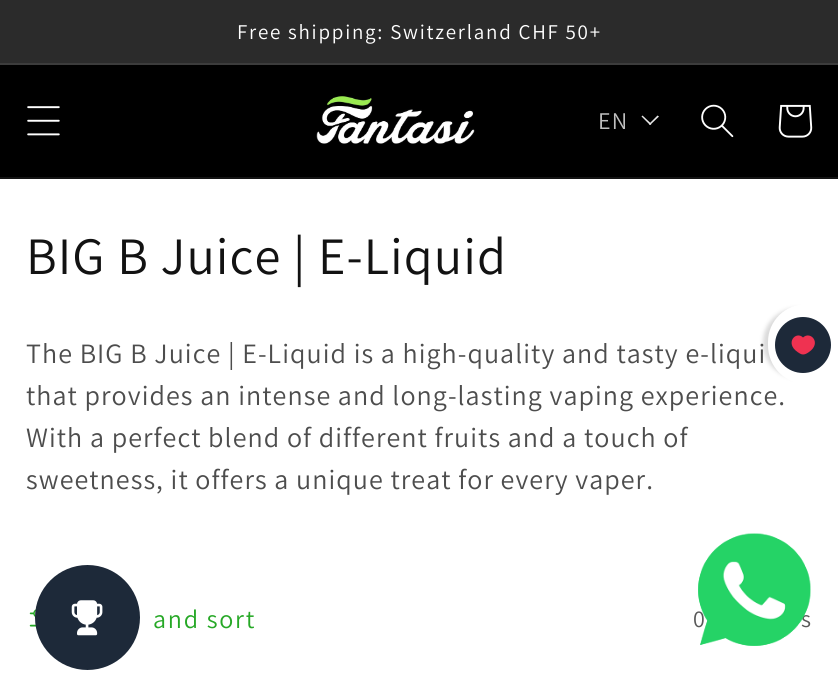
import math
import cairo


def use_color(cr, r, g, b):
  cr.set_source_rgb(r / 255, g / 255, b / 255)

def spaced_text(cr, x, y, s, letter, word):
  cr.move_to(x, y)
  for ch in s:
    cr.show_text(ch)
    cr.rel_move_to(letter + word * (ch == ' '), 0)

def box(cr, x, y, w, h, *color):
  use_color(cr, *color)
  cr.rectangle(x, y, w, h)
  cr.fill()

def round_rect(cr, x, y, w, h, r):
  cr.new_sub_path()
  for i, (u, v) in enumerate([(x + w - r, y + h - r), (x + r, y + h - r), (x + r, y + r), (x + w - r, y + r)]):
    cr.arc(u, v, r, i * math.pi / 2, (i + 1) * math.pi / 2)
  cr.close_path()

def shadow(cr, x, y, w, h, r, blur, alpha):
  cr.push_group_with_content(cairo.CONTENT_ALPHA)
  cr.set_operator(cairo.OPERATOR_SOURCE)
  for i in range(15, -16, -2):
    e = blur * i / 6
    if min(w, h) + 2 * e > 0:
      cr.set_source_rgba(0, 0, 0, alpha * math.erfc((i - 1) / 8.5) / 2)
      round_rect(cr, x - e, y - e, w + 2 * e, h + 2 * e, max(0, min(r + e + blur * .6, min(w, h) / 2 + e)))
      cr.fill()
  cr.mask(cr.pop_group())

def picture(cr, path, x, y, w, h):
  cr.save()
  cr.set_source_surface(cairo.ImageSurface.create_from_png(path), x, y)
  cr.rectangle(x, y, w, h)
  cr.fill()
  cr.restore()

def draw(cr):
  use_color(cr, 255, 255, 255)
  cr.paint()
  box(cr, 0, 0, 838, 63, 43, 43, 43)
  box(cr, 0, 63, 838, 2, 60, 60, 60)
  box(cr, 0, 65, 838, 112, 0, 0, 0)
  box(cr, 0, 177, 838, 2, 20, 20, 20)
  picture(cr, "img_01.png", 27, 106, 33, 30)
  picture(cr, "img_02.png", 316, 96, 159, 48)
  use_color(cr, 230, 230, 230)
  cr.new_path()
  cr.move_to(657.5, 115.5)
  cr.line_to(659, 116.5)
  cr.line_to(650, 125)
  cr.line_to(649, 124)
  cr.close_path()
  cr.fill()
  cr.new_path()
  cr.move_to(642.5, 115.5)
  cr.line_to(651.5, 124)
  cr.line_to(650, 125)
  cr.line_to(641.5, 116.5)
  cr.close_path()
  cr.fill()
  picture(cr, "img_03.png", 701, 104, 33, 34)
  picture(cr, "img_04.png", 778, 104, 35, 34)
  picture(cr, "img_05.png", 29, 609, 7, 18)
  use_color(cr, 218, 218, 218)
  shadow(cr, 763, 308, 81, 70, 39, 2, 1)
  use_color(cr, 255, 255, 255)
  cr.new_path()
  cr.move_to(768, 345)
  cr.line_to(768, 342)
  cr.curve_to(768, 321, 785, 304, 807, 304)
  cr.line_to(838, 304)
  cr.line_to(838, 384)
  cr.line_to(807, 384)
  cr.curve_to(785, 384, 768, 367, 768, 345)
  cr.close_path()
  cr.fill()
  use_color(cr, 29, 41, 57)
  cr.arc(803, 345, 28, 0, 2 * math.pi)
  cr.fill()
  use_color(cr, 239, 50, 81)
  cr.new_path()
  cr.move_to(803, 337.5)
  cr.curve_to(796, 330.5, 784.5, 343, 797.5, 352)
  cr.curve_to(799, 353, 801, 354.5, 803, 354.5)
  cr.curve_to(805.5, 354.5, 807.5, 353, 809, 352)
  cr.curve_to(822, 343, 810.5, 330.5, 803, 337.5)
  cr.close_path()
  cr.fill()
  use_color(cr, 29, 41, 57)
  cr.arc(87.5, 617.5, 52.5, 0, 2 * math.pi)
  cr.fill()
  picture(cr, "img_06.png", 71, 600, 32, 36)
  cr.select_font_face("Assistant")
  cr.set_font_size(21)
  use_color(cr, 255, 255, 255)
  spaced_text(cr, 237, 39, "Free shipping: Switzerland CHF 50+", 1.75, 0)
  cr.set_font_size(24)
  use_color(cr, 191, 191, 191)
  spaced_text(cr, 598, 129, "EN", 1.05, 0)
  cr.set_font_size(52.5)
  use_color(cr, 18, 18, 18)
  spaced_text(cr, 26, 274, "BIG B Juice | E-Liquid", 1.05, 0)
  cr.set_font_size(28)
  use_color(cr, 77, 77, 77)
  spaced_text(cr, 26, 363, "The BIG B Juice | E-Liquid is a high-quality and tasty e-liqui", 1.05, 0)
  spaced_text(cr, 26, 405, "that provides an intense and long-lasting vaping experience.", 1.05, 0)
  spaced_text(cr, 26, 447, "With a perfect blend of different fruits and a touch of", 1.05, 0)
  spaced_text(cr, 26, 489, "sweetness, it offers a unique treat for every vaper.", 1.05, 0)
  cr.set_font_size(26)
  use_color(cr, 38, 168, 38)
  spaced_text(cr, 153, 628, "and sort", 1.75, 0)
  cr.set_font_size(24)
  use_color(cr, 89, 89, 89)
  spaced_text(cr, 693, 627, "0", 1.05, 0)
  spaced_text(cr, 801, 627, "s", 1.05, 0)
  picture(cr, "img_07.png", 698, 533, 113, 113)
  picture(cr, "img_08.png", 698, 533, 113, 113)


surface = cairo.ImageSurface(cairo.FORMAT_RGB24, 838, 687)
cr = cairo.Context(surface)
options = cairo.FontOptions()
options.set_hint_metrics(cairo.HINT_METRICS_OFF)
options.set_hint_style(cairo.HINT_STYLE_NONE)
cr.set_font_options(options)
cr.set_miter_limit(4)
draw(cr)
surface.write_to_png("out.png")
